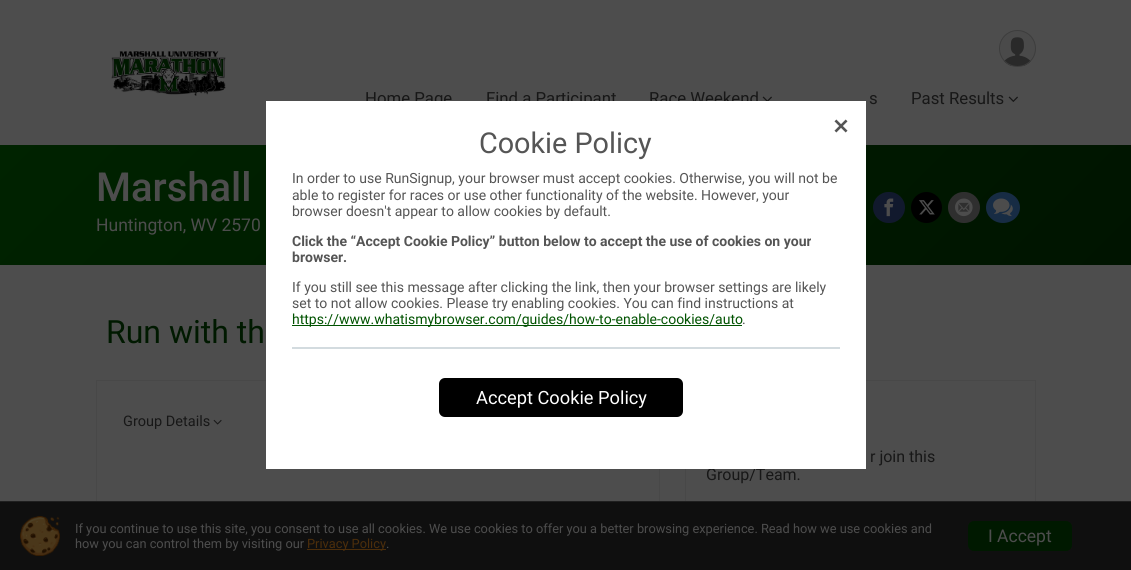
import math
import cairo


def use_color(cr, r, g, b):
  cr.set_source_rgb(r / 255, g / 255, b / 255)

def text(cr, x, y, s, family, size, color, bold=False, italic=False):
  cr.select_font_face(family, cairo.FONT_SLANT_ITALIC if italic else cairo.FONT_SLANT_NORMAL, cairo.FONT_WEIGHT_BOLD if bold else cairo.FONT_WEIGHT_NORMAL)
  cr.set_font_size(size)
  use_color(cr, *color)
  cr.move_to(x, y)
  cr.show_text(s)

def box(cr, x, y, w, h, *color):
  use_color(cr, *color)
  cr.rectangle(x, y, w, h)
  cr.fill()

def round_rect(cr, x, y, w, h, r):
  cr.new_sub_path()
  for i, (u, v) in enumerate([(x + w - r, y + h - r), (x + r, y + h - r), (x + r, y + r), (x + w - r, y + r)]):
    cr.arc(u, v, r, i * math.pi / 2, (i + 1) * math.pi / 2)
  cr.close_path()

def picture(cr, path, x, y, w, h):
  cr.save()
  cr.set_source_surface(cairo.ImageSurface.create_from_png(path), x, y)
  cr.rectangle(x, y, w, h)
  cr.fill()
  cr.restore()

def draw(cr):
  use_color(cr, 77, 77, 77)
  cr.paint()
  picture(cr, "img_01.png", 111, 51, 115, 45)
  picture(cr, "img_02.png", 1000, 31, 35, 35)
  cr.arc(1017.5, 48.5, 18, 0, 2 * math.pi)
  use_color(cr, 61, 61, 61)
  cr.set_line_width(1)
  cr.stroke()
  picture(cr, "img_03.png", 762, 96, 10, 5)
  picture(cr, "img_04.png", 1008, 96, 10, 6)
  gradient = cairo.LinearGradient(878, 518, 253, -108)
  gradient.add_color_stop_rgba(0, 0, 0.078, 0, 1)
  gradient.add_color_stop_rgba(1, 0, 0.137, 0, 1)
  cr.set_source(gradient)
  cr.rectangle(0, 145, 1131, 120)
  cr.fill()
  use_color(cr, 17, 25, 45)
  round_rect(cr, 873, 192, 32, 31, 15.5)
  cr.fill()
  picture(cr, "img_05.png", 884, 198, 10, 19)
  use_color(cr, 0, 0, 0)
  cr.arc(926.5, 207.5, 15.5, 0, 2 * math.pi)
  cr.fill()
  picture(cr, "img_06.png", 919, 200, 16, 15)
  use_color(cr, 47, 47, 47)
  round_rect(cr, 948, 192, 32, 31, 15.5)
  cr.fill()
  picture(cr, "img_07.png", 955, 198, 18, 19)
  use_color(cr, 23, 44, 68)
  cr.new_path()
  cr.move_to(1003, 192)
  cr.curve_to(1012.5, 192, 1020, 199, 1020, 207.5)
  cr.curve_to(1020, 216, 1012.5, 223, 1003, 223)
  cr.curve_to(993.5, 223, 986, 216, 986, 207.5)
  cr.curve_to(986, 199, 993.5, 192, 1003, 192)
  cr.close_path()
  cr.fill()
  picture(cr, "img_08.png", 993, 198, 20, 19)
  cr.rectangle(96.5, 380.5, 563, 141)
  use_color(cr, 72, 72, 72)
  cr.stroke()
  picture(cr, "img_09.png", 213, 419, 9, 6)
  cr.rectangle(685.5, 380.5, 350, 141)
  cr.stroke()
  box(cr, 0, 502, 1131, 68, 15, 15, 15)
  box(cr, 0, 501, 1131, 1, 31, 31, 31)
  picture(cr, "img_11.png", 20, 516, 40, 40)
  box(cr, 307, 549, 79, 1, 76, 46, 11)
  use_color(cr, 0, 25, 0)
  round_rect(cr, 968, 521, 104, 30, 6)
  cr.fill()
  text(cr, 365, 104, "Home Page", "Roboto", 16.75, (23, 23, 23))
  text(cr, 486, 104, "Find a Participant", "Roboto", 16.75, (23, 23, 23))
  text(cr, 649, 104, "Race Weekend", "Roboto", 16.75, (23, 23, 23))
  text(cr, 869, 104, "s", "Roboto", 16.75, (23, 23, 23))
  text(cr, 911, 104, "Past Results", "Roboto", 16.75, (23, 23, 23))
  text(cr, 96, 201, "Marshall", "Roboto Medium", 40, (77, 77, 77))
  text(cr, 96, 231, "Huntington, WV 2570", "Roboto", 17.5, (77, 77, 77))
  text(cr, 106, 343, "Run with th", "Roboto", 32, (0, 25, 0))
  text(cr, 123, 426, "Group Details", "Roboto", 14.5, (23, 23, 23))
  text(cr, 870, 462, "r join this", "Roboto", 16, (23, 23, 23))
  text(cr, 706, 480, "Group/Team.", "Roboto", 16, (23, 23, 23))
  cr.rectangle(266.5, 101.5, 599, 367)
  use_color(cr, 255, 255, 255)
  cr.stroke()
  box(cr, 267, 102, 598, 366, 255, 255, 255)
  picture(cr, "img_10.png", 834, 119, 14, 14)
  text(cr, 479, 153, "Cookie Policy", "Roboto", 28.75, (85, 85, 85))
  text(cr, 292, 183, "In order to use RunSignup, your browser must accept cookies. Otherwise, you will not be", "Roboto", 14, (85, 85, 85))
  text(cr, 292, 200, "able to register for races or use other functionality of the website. However, your", "Roboto", 14, (85, 85, 85))
  text(cr, 292, 216, "browser doesn't appear to allow cookies by default.", "Roboto", 14, (85, 85, 85))
  text(cr, 292, 246, "Click the “Accept Cookie Policy” button below to accept the use of cookies on your", "Roboto", 14, (85, 85, 85), bold=True)
  text(cr, 292, 262, "browser.", "Roboto", 14, (85, 85, 85), bold=True)
  text(cr, 292, 292, "If you still see this message after clicking the link, then your browser settings are likely", "Roboto", 14, (85, 85, 85))
  text(cr, 292, 308, "set to not allow cookies. Please try enabling cookies. You can find instructions at", "Roboto", 14, (85, 85, 85))
  box(cr, 292, 325, 450, 1, 0, 82, 0)
  text(cr, 292, 324, "https://www.whatismybrowser.com/guides/how-to-enable-cookies/auto", "Roboto", 14, (0, 82, 0))
  text(cr, 742, 324, ".", "Roboto", 14, (85, 85, 85))
  box(cr, 292, 347, 548, 2, 211, 219, 223)
  use_color(cr, 0, 0, 0)
  round_rect(cr, 439, 378, 244, 39, 6)
  cr.fill()
  text(cr, 476, 404, "Accept Cookie Policy", "Roboto", 18.25, (255, 255, 255))
  text(cr, 75, 533, "If you continue to use this site, you consent to use all cookies. We use cookies to offer you a better browsing experience. Read how we use cookies and", "Roboto", 12.8, (77, 77, 77))
  text(cr, 75, 548, "how you can control them by visiting our", "Roboto", 12.8, (77, 77, 77))
  text(cr, 307, 548, "Privacy Policy", "Roboto", 12.8, (76, 46, 11))
  text(cr, 386, 548, ".", "Roboto", 12.8, (77, 77, 77))
  text(cr, 988, 542, "I Accept", "Roboto", 17.5, (77, 77, 77))


surface = cairo.ImageSurface(cairo.FORMAT_RGB24, 1131, 570)
cr = cairo.Context(surface)
options = cairo.FontOptions()
options.set_hint_metrics(cairo.HINT_METRICS_OFF)
options.set_hint_style(cairo.HINT_STYLE_NONE)
cr.set_font_options(options)
cr.set_miter_limit(4)
draw(cr)
surface.write_to_png("out.png")
